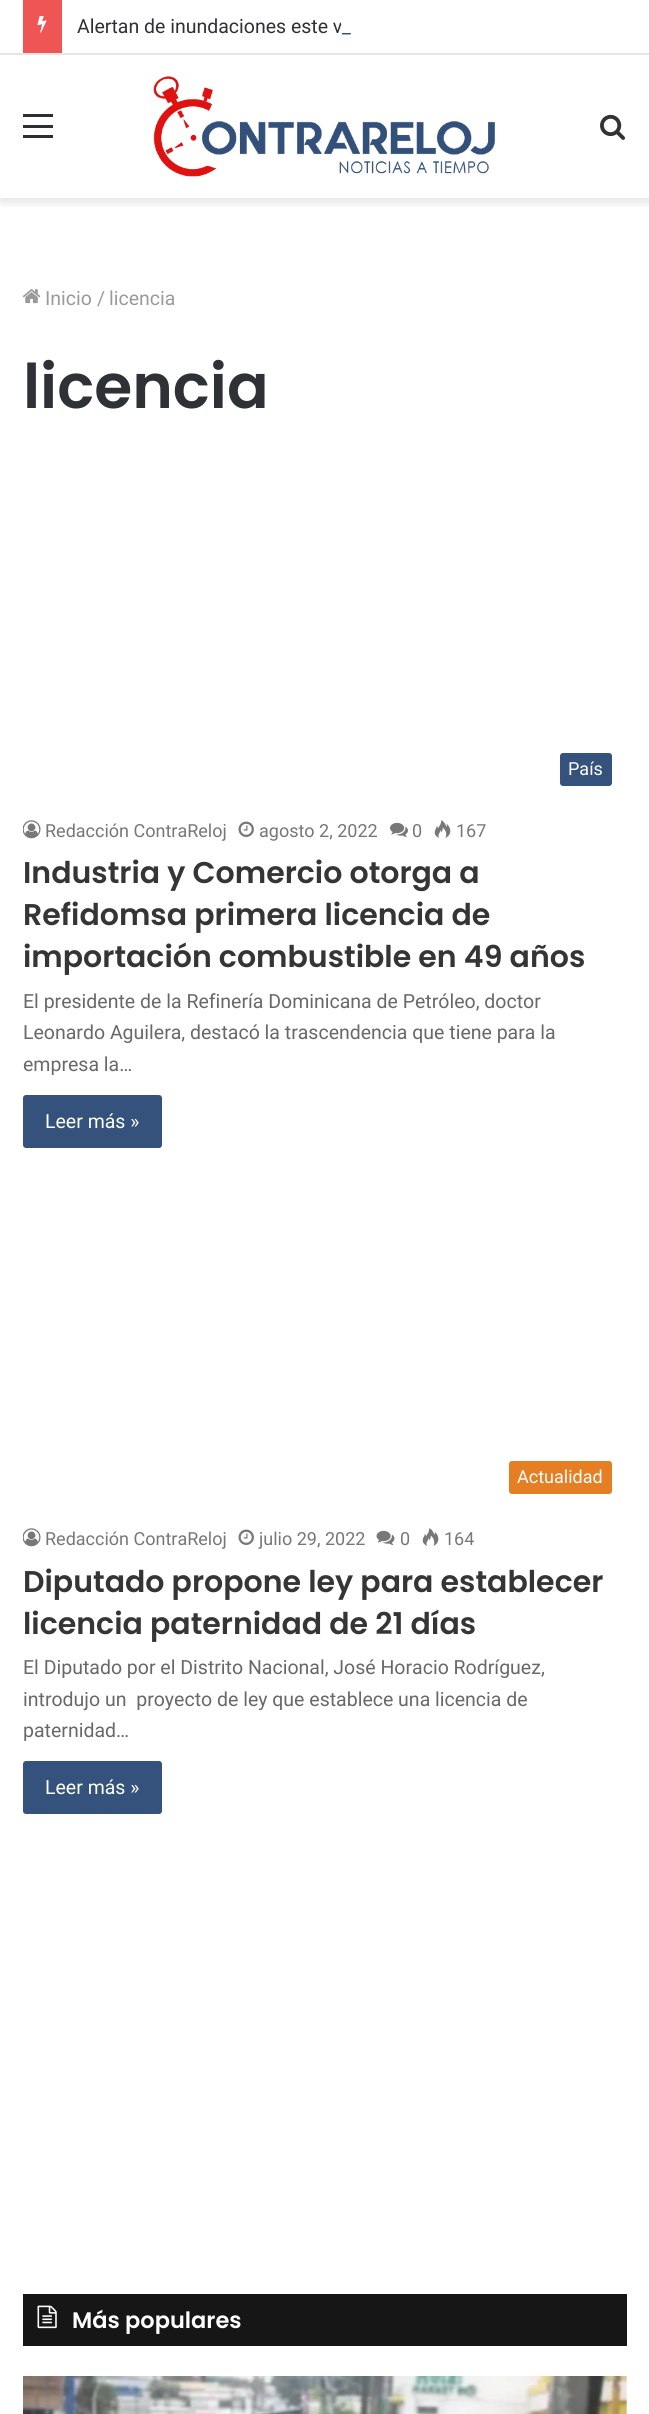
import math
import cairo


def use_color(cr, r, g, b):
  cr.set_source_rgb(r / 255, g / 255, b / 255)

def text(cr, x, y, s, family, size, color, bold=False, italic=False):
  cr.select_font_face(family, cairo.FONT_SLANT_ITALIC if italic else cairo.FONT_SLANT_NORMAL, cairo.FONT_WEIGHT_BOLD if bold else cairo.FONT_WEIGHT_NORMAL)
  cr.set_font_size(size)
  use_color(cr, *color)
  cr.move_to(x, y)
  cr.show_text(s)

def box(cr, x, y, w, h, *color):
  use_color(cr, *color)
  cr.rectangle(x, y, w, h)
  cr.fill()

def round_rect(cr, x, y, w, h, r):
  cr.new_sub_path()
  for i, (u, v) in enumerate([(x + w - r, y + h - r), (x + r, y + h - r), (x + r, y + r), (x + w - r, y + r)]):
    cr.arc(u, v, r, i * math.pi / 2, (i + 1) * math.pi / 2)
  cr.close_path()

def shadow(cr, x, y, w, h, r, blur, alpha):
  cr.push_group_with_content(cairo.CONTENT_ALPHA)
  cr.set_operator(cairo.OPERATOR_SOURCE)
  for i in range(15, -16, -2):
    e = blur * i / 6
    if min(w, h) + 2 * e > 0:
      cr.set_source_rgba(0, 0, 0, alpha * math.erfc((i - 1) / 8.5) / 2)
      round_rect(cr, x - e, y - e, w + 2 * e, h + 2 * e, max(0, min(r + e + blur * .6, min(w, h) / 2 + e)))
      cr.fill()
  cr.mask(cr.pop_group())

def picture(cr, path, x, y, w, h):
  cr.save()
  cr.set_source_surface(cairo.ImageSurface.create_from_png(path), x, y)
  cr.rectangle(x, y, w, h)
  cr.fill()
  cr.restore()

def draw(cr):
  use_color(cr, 255, 255, 255)
  cr.paint()
  cr.save()
  cr.rectangle(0, 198, 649, 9)
  cr.clip()
  use_color(cr, 0, 0, 0)
  shadow(cr, 0, 59, 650, 144, 0, 5, 0.1)
  cr.restore()
  box(cr, 0, 53, 649, 2, 230, 230, 230)
  box(cr, 23, 0, 39, 53, 240, 85, 85)
  picture(cr, "img_01.png", 37, 16, 10, 17)
  box(cr, 23, 125, 30, 3, 44, 47, 52)
  box(cr, 23, 114, 30, 3, 44, 47, 52)
  box(cr, 23, 135, 30, 3, 44, 47, 52)
  picture(cr, "img_02.png", 153, 76, 342, 101)
  picture(cr, "img_03.png", 600, 114, 25, 26)
  picture(cr, "img_04.png", 22, 289, 19, 15)
  use_color(cr, 53, 82, 124)
  round_rect(cr, 560, 753, 52, 33, 3)
  cr.fill()
  picture(cr, "img_05.png", 23, 820, 18, 19)
  picture(cr, "img_06.png", 238, 821, 16, 16)
  picture(cr, "img_07.png", 390, 822, 18, 15)
  picture(cr, "img_08.png", 434, 820, 17, 18)
  round_rect(cr, 23, 1095, 139, 53, 3)
  cr.fill()
  use_color(cr, 230, 127, 36)
  round_rect(cr, 509, 1461, 103, 33, 3)
  cr.fill()
  picture(cr, "img_05.png", 23, 1528, 18, 19)
  picture(cr, "img_06.png", 238, 1529, 16, 16)
  picture(cr, "img_09.png", 376, 1530, 19, 15)
  picture(cr, "img_08.png", 422, 1528, 17, 18)
  use_color(cr, 53, 82, 124)
  round_rect(cr, 23, 1761, 139, 53, 3)
  cr.fill()
  box(cr, 23, 2294, 604, 52, 22, 22, 22)
  picture(cr, "img_10.png", 37, 2305, 20, 24)
  picture(cr, "img_11.png", 23, 2376, 604, 38)
  text(cr, 77, 33, "Alertan de inundaciones este v", "Roboto", 19.5, (46, 49, 54))
  box(cr, 341, 22, 1, 2, 255, 255, 255)
  text(cr, 342, 33, "_", "Roboto", 19.5, (51, 80, 123))
  text(cr, 45, 305, "Inicio", "Roboto", 19.5, (154, 154, 154))
  text(cr, 97, 305, "/", "Roboto", 19.5, (154, 154, 154))
  text(cr, 109, 305, "licencia", "Roboto", 19.5, (154, 154, 154))
  text(cr, 23, 408, "licencia", "Poppins SemiBold", 61.5, (46, 49, 54))
  text(cr, 568, 775, "País", "Roboto", 18, (255, 255, 255))
  text(cr, 45, 837, "Redacción ContraReloj", "Roboto", 18, (119, 119, 119))
  text(cr, 259, 837, "agosto 2, 2022", "Roboto", 18, (119, 119, 119))
  text(cr, 412, 837, "0", "Roboto", 18, (119, 119, 119))
  text(cr, 456, 837, "167", "Roboto", 18, (119, 119, 119))
  text(cr, 23, 883, "Industria y Comercio otorga a", "Poppins SemiBold", 30, (53, 53, 53))
  text(cr, 23, 925, "Refidomsa primera licencia de", "Poppins SemiBold", 30, (53, 53, 53))
  text(cr, 23, 967, "importación combustible en 49 años", "Poppins SemiBold", 30, (53, 53, 53))
  text(cr, 23, 1008, "El presidente de la Refinería Dominicana de Petróleo, doctor", "Roboto", 19.5, (104, 104, 104))
  text(cr, 23, 1039, "Leonardo Aguilera, destacó la trascendencia que tiene para la", "Roboto", 19.5, (104, 104, 104))
  text(cr, 23, 1071, "empresa la…", "Roboto", 19.5, (104, 104, 104))
  text(cr, 45, 1128, "Leer más »", "Roboto", 19.5, (255, 255, 255))
  text(cr, 517, 1483, "Actualidad", "Roboto", 18, (255, 255, 255))
  text(cr, 45, 1545, "Redacción ContraReloj", "Roboto", 18, (119, 119, 119))
  text(cr, 259, 1545, "julio 29, 2022", "Roboto", 18, (119, 119, 119))
  text(cr, 400, 1545, "0", "Roboto", 18, (119, 119, 119))
  text(cr, 444, 1545, "164", "Roboto", 18, (119, 119, 119))
  text(cr, 23, 1592, "Diputado propone ley para establecer", "Poppins SemiBold", 30, (53, 53, 53))
  text(cr, 23, 1634, "licencia paternidad de 21 días", "Poppins SemiBold", 30, (53, 53, 53))
  text(cr, 23, 1674, "El Diputado por el Distrito Nacional, José Horacio Rodríguez,", "Roboto", 19.5, (104, 104, 104))
  text(cr, 23, 1706, "introdujo un  proyecto de ley que establece una licencia de", "Roboto", 19.5, (104, 104, 104))
  text(cr, 23, 1737, "paternidad…", "Roboto", 19.5, (104, 104, 104))
  text(cr, 45, 1794, "Leer más »", "Roboto", 19.5, (255, 255, 255))
  text(cr, 72, 2328, "Más populares", "Poppins SemiBold", 22.5, (255, 255, 255))


surface = cairo.ImageSurface(cairo.FORMAT_RGB24, 649, 2414)
cr = cairo.Context(surface)
options = cairo.FontOptions()
options.set_hint_metrics(cairo.HINT_METRICS_OFF)
options.set_hint_style(cairo.HINT_STYLE_NONE)
cr.set_font_options(options)
cr.set_miter_limit(4)
draw(cr)
surface.write_to_png("out.png")
